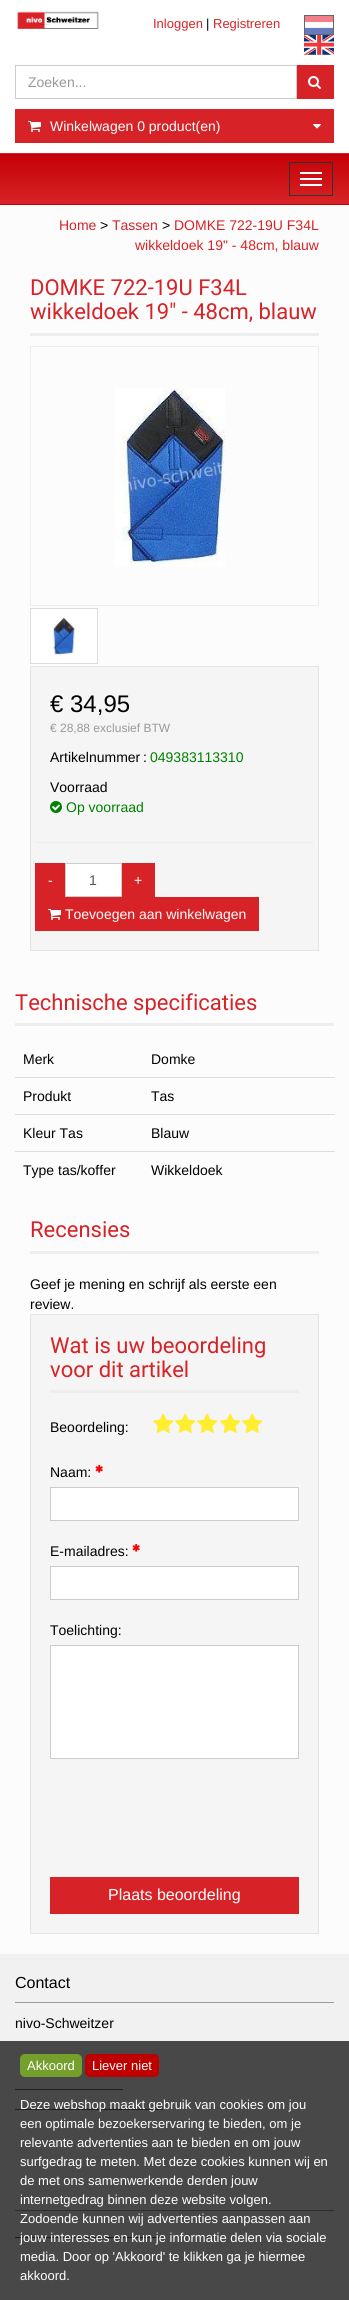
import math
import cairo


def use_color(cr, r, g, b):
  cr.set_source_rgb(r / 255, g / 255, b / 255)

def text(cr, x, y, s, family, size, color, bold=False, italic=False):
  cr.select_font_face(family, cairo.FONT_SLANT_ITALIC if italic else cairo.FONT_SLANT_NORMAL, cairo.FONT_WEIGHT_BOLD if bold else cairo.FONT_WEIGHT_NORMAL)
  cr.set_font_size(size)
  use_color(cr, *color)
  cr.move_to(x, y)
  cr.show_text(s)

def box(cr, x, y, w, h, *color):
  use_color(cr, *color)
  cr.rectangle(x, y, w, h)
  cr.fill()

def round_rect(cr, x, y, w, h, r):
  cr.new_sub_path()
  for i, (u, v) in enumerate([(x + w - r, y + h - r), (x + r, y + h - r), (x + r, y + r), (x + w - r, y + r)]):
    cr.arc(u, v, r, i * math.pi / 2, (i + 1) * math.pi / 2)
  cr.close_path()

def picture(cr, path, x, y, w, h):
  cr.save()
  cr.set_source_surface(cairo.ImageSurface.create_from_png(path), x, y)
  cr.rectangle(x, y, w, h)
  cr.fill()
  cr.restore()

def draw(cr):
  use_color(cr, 252, 252, 252)
  cr.paint()
  box(cr, 0, 0, 349, 153, 255, 255, 255)
  picture(cr, "img_01.png", 17, 11, 82, 18)
  cr.rectangle(304.5, 15.5, 29, 19)
  use_color(cr, 102, 102, 102)
  cr.set_line_width(1)
  cr.stroke()
  picture(cr, "img_02.png", 305, 16, 28, 18)
  picture(cr, "img_03.png", 304, 35, 30, 20)
  cr.rectangle(15.5, 65.5, 281, 33)
  use_color(cr, 204, 204, 204)
  cr.stroke()
  box(cr, 297, 65, 37, 34, 215, 35, 39)
  picture(cr, "img_04.png", 308, 76, 13, 13)
  box(cr, 15, 109, 319, 34, 215, 35, 39)
  picture(cr, "img_05.png", 28, 121, 13, 11)
  picture(cr, "img_06.png", 313, 124, 8, 5)
  gradient = cairo.LinearGradient(175, 104, 175, 154)
  gradient.add_color_stop_rgba(0, 0.769, 0.004, 0.02, 1)
  gradient.add_color_stop_rgba(1, 0.843, 0.137, 0.153, 1)
  cr.set_source(gradient)
  cr.rectangle(0, 153, 349, 1)
  cr.fill()
  gradient = cairo.LinearGradient(175, 154, 175, 204)
  gradient.add_color_stop_rgba(0, 0.769, 0.004, 0.02, 1)
  gradient.add_color_stop_rgba(1, 0.843, 0.137, 0.153, 1)
  cr.set_source(gradient)
  cr.rectangle(0, 154, 349, 50)
  cr.fill()
  gradient = cairo.LinearGradient(175, 204, 175, 254)
  gradient.add_color_stop_rgba(0, 0.769, 0.004, 0.02, 1)
  gradient.add_color_stop_rgba(1, 0.843, 0.137, 0.153, 1)
  cr.set_source(gradient)
  cr.rectangle(0, 204, 349, 1)
  cr.fill()
  cr.rectangle(289.5, 162.5, 43, 33)
  use_color(cr, 51, 51, 51)
  cr.stroke()
  box(cr, 300, 172, 22, 2, 255, 255, 255)
  box(cr, 300, 178, 22, 2, 255, 255, 255)
  box(cr, 300, 184, 22, 2, 255, 255, 255)
  box(cr, 30, 333, 289, 3, 238, 238, 238)
  cr.rectangle(30.5, 346.5, 288, 259)
  cr.stroke()
  picture(cr, "img_07.png", 115, 388, 110, 179)
  use_color(cr, 255, 255, 255)
  cr.rectangle(30.5, 608.5, 67, 55)
  cr.fill_preserve()
  use_color(cr, 221, 221, 221)
  cr.stroke()
  picture(cr, "img_08.png", 52, 617, 23, 38)
  use_color(cr, 245, 245, 245)
  cr.rectangle(30.5, 666.5, 288, 284)
  cr.fill_preserve()
  use_color(cr, 227, 227, 227)
  cr.stroke()
  picture(cr, "img_09.png", 50, 801, 12, 12)
  box(cr, 35, 842, 279, 1, 238, 238, 238)
  box(cr, 35, 863, 30, 34, 215, 35, 39)
  use_color(cr, 255, 255, 255)
  cr.rectangle(65.5, 863.5, 56, 33)
  cr.fill_preserve()
  use_color(cr, 204, 204, 204)
  cr.stroke()
  box(cr, 122, 863, 33, 34, 215, 35, 39)
  box(cr, 35, 897, 224, 34, 215, 35, 39)
  picture(cr, "img_05.png", 48, 909, 13, 11)
  box(cr, 15, 1023, 319, 3, 238, 238, 238)
  box(cr, 15, 1077, 320, 1, 221, 221, 221)
  box(cr, 15, 1114, 320, 1, 221, 221, 221)
  box(cr, 15, 1151, 320, 1, 221, 221, 221)
  box(cr, 30, 1251, 289, 3, 238, 238, 238)
  use_color(cr, 245, 245, 245)
  cr.rectangle(30.5, 1314.5, 288, 619)
  cr.fill_preserve()
  use_color(cr, 227, 227, 227)
  cr.stroke()
  box(cr, 50, 1390, 249, 3, 238, 238, 238)
  picture(cr, "img_10.png", 153, 1413, 21, 20)
  picture(cr, "img_10.png", 175, 1413, 21, 20)
  picture(cr, "img_10.png", 197, 1413, 21, 20)
  picture(cr, "img_10.png", 220, 1413, 21, 20)
  picture(cr, "img_10.png", 242, 1413, 21, 20)
  picture(cr, "img_11.png", 95, 1464, 8, 9)
  use_color(cr, 255, 255, 255)
  cr.rectangle(50.5, 1487.5, 248, 33)
  cr.fill_preserve()
  use_color(cr, 204, 204, 204)
  cr.stroke()
  picture(cr, "img_11.png", 132, 1543, 8, 9)
  use_color(cr, 255, 255, 255)
  cr.rectangle(50.5, 1566.5, 248, 33)
  cr.fill_preserve()
  use_color(cr, 204, 204, 204)
  cr.stroke()
  use_color(cr, 255, 255, 255)
  cr.rectangle(50.5, 1645.5, 248, 113)
  cr.fill_preserve()
  use_color(cr, 204, 204, 204)
  cr.stroke()
  box(cr, 50, 1877, 249, 37, 215, 35, 39)
  box(cr, 0, 1954, 349, 346, 241, 241, 241)
  box(cr, 15, 2002, 319, 1, 153, 153, 153)
  box(cr, 15, 2089, 108, 1, 102, 102, 102)
  box(cr, 15, 2109, 148, 1, 102, 102, 102)
  box(cr, 15, 2210, 319, 1, 153, 153, 153)
  box(cr, 15, 2237, 148, 1, 102, 102, 102)
  cr.set_source_rgba(0, 0, 0, 0.7)
  cr.rectangle(0, 2041, 349, 259)
  cr.fill()
  use_color(cr, 116, 159, 44)
  round_rect(cr, 20, 2054, 62, 23, 5)
  cr.fill()
  use_color(cr, 191, 0, 0)
  round_rect(cr, 85, 2054, 74, 23, 5)
  cr.fill()
  text(cr, 153, 28, "Inloggen", "Liberation Sans", 13, (215, 35, 39))
  text(cr, 206, 28, "|", "Liberation Sans", 13, (0, 0, 0))
  text(cr, 213, 28, "Registreren", "Liberation Sans", 13, (215, 35, 39))
  text(cr, 28, 87, "Zoeken...", "Liberation Sans", 14, (153, 153, 153))
  text(cr, 50, 131, "Winkelwagen 0 product(en)", "Liberation Sans", 14, (255, 255, 255))
  text(cr, 59, 230, "Home", "Liberation Sans", 14, (215, 35, 39))
  text(cr, 100, 230, ">", "Liberation Sans", 14, (0, 0, 0))
  text(cr, 112, 230, "Tassen", "Liberation Sans", 14, (215, 35, 39))
  text(cr, 162, 230, ">", "Liberation Sans", 14, (0, 0, 0))
  text(cr, 174, 230, "DOMKE 722-19U F34L", "Liberation Sans", 14, (215, 35, 39))
  text(cr, 135, 250, "wikkeldoek 19\" - 48cm, blauw", "Liberation Sans", 14, (215, 35, 39))
  text(cr, 30, 295, "DOMKE 722-19U F34L", "Roboto", 22, (215, 35, 39))
  text(cr, 30, 319, "wikkeldoek 19\" - 48cm, blauw", "Roboto", 22, (215, 35, 39))
  text(cr, 50, 712, "€ 34,95", "Liberation Sans", 24, (0, 0, 0))
  text(cr, 50, 732, "€ 28,88 exclusief BTW", "Liberation Sans", 12, (153, 153, 153))
  text(cr, 50, 762, "Artikelnummer", "Liberation Sans", 14, (0, 0, 0))
  text(cr, 143, 762, ":", "Liberation Sans", 14, (0, 0, 0))
  text(cr, 150, 762, "049383113310", "Liberation Sans", 14, (0, 128, 0))
  text(cr, 50, 792, "Voorraad", "Liberation Sans", 14, (0, 0, 0))
  text(cr, 66, 812, "Op voorraad", "Liberation Sans", 14, (0, 128, 0))
  text(cr, 48, 885, "-", "Liberation Sans", 14, (255, 255, 255))
  text(cr, 89, 885, "1", "Liberation Sans", 14, (85, 85, 85))
  text(cr, 134, 885, "+", "Liberation Sans", 14, (255, 255, 255))
  text(cr, 65, 919, "Toevoegen aan winkelwagen", "Liberation Sans", 14, (255, 255, 255))
  text(cr, 15, 1010, "Technische specificaties", "Roboto", 22, (215, 35, 39))
  text(cr, 23, 1064, "Merk", "Liberation Sans", 14, (0, 0, 0))
  text(cr, 151, 1064, "Domke", "Liberation Sans", 14, (0, 0, 0))
  text(cr, 23, 1101, "Produkt", "Liberation Sans", 14, (0, 0, 0))
  text(cr, 151, 1101, "Tas", "Liberation Sans", 14, (0, 0, 0))
  text(cr, 23, 1138, "Kleur Tas", "Liberation Sans", 14, (0, 0, 0))
  text(cr, 151, 1138, "Blauw", "Liberation Sans", 14, (0, 0, 0))
  text(cr, 23, 1175, "Type tas/koffer", "Liberation Sans", 14, (0, 0, 0))
  text(cr, 151, 1175, "Wikkeldoek", "Liberation Sans", 14, (0, 0, 0))
  text(cr, 30, 1237, "Recensies", "Roboto", 22, (215, 35, 39))
  text(cr, 30, 1289, "Geef je mening en schrijf als eerste een", "Liberation Sans", 14, (0, 0, 0))
  text(cr, 30, 1309, "review.", "Liberation Sans", 14, (0, 0, 0))
  text(cr, 50, 1353, "Wat is uw beoordeling", "Roboto", 22, (215, 35, 39))
  text(cr, 50, 1377, "voor dit artikel", "Roboto", 22, (215, 35, 39))
  text(cr, 50, 1432, "Beoordeling:", "Liberation Sans", 14, (0, 0, 0))
  text(cr, 50, 1477, "Naam:", "Liberation Sans", 14, (0, 0, 0))
  text(cr, 50, 1556, "E-mailadres:", "Liberation Sans", 14, (0, 0, 0))
  text(cr, 50, 1635, "Toelichting:", "Liberation Sans", 14, (0, 0, 0))
  text(cr, 108, 1900, "Plaats beoordeling", "Liberation Sans", 16, (255, 255, 255))
  text(cr, 15, 1988, "Contact", "Liberation Sans", 16, (0, 0, 0))
  text(cr, 15, 2028, "nivo-Schweitzer", "Liberation Sans", 14, (0, 0, 0))
  text(cr, 27, 2070, "Akkoord", "Liberation Sans", 13, (255, 255, 255))
  text(cr, 92, 2070, "Liever niet", "Liberation Sans", 13, (255, 255, 255))
  text(cr, 20, 2109, "Deze webshop maakt gebruik van cookies om jou", "Liberation Sans", 13, (255, 255, 255))
  text(cr, 20, 2128, "een optimale bezoekerservaring te bieden, om je", "Liberation Sans", 13, (255, 255, 255))
  text(cr, 20, 2147, "relevante advertenties aan te bieden en om jouw", "Liberation Sans", 13, (255, 255, 255))
  text(cr, 20, 2166, "surfgedrag te meten. Met deze cookies kunnen wij en", "Liberation Sans", 13, (255, 255, 255))
  text(cr, 20, 2185, "de met ons samenwerkende derden jouw", "Liberation Sans", 13, (255, 255, 255))
  text(cr, 20, 2204, "internetgedrag binnen deze website volgen.", "Liberation Sans", 13, (255, 255, 255))
  text(cr, 20, 2223, "Zodoende kunnen wij advertenties aanpassen aan", "Liberation Sans", 13, (255, 255, 255))
  text(cr, 20, 2242, "jouw interesses en kun je informatie delen via sociale", "Liberation Sans", 13, (255, 255, 255))
  text(cr, 20, 2261, "media. Door op 'Akkoord' te klikken ga je hiermee", "Liberation Sans", 13, (255, 255, 255))
  text(cr, 20, 2280, "akkoord.", "Liberation Sans", 13, (255, 255, 255))


surface = cairo.ImageSurface(cairo.FORMAT_RGB24, 349, 2300)
cr = cairo.Context(surface)
options = cairo.FontOptions()
options.set_hint_metrics(cairo.HINT_METRICS_OFF)
options.set_hint_style(cairo.HINT_STYLE_NONE)
cr.set_font_options(options)
cr.set_miter_limit(4)
draw(cr)
surface.write_to_png("out.png")
